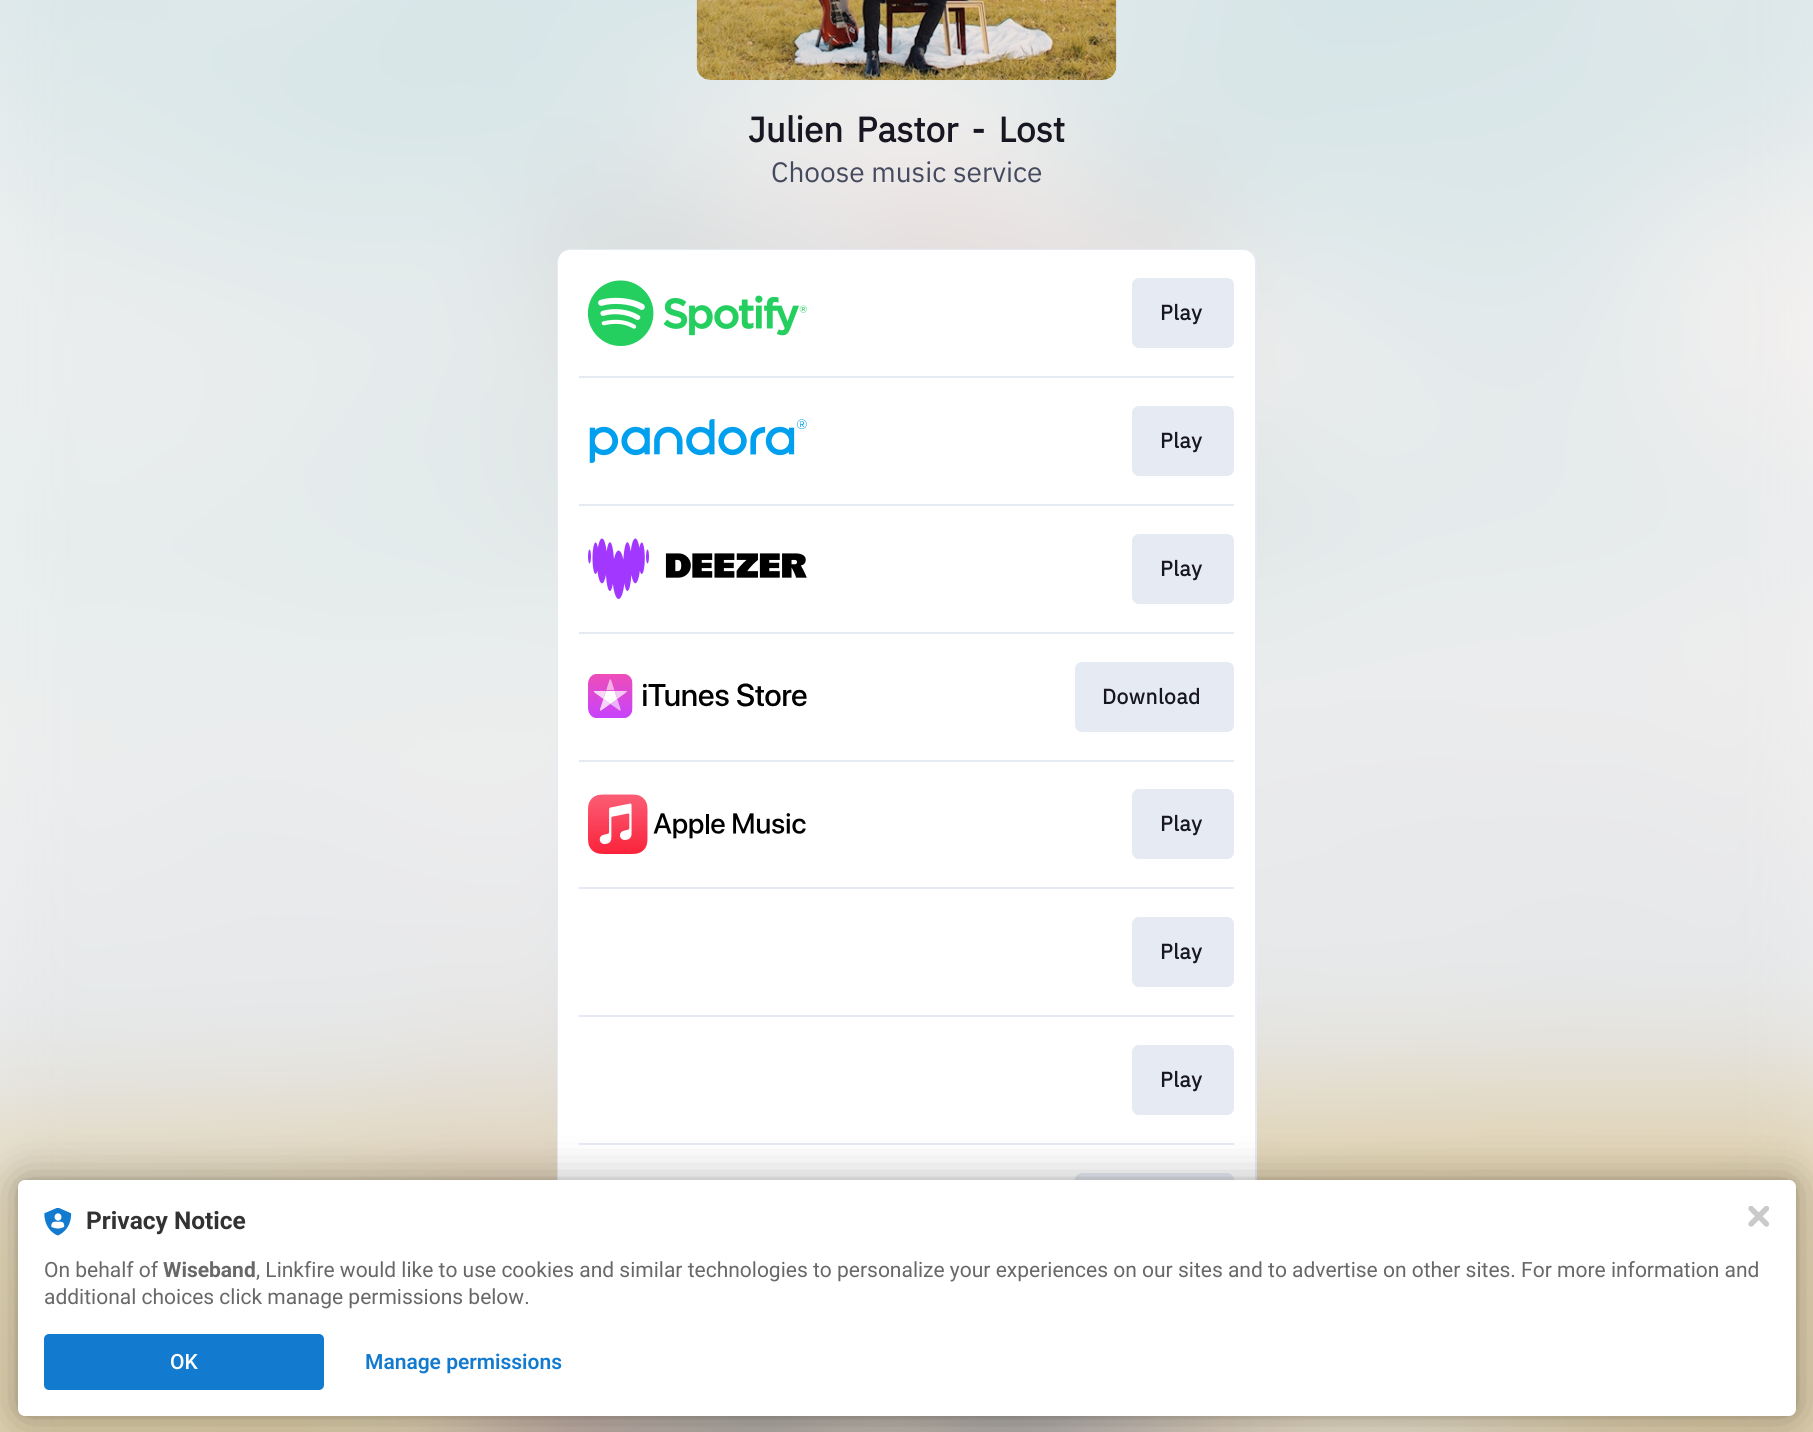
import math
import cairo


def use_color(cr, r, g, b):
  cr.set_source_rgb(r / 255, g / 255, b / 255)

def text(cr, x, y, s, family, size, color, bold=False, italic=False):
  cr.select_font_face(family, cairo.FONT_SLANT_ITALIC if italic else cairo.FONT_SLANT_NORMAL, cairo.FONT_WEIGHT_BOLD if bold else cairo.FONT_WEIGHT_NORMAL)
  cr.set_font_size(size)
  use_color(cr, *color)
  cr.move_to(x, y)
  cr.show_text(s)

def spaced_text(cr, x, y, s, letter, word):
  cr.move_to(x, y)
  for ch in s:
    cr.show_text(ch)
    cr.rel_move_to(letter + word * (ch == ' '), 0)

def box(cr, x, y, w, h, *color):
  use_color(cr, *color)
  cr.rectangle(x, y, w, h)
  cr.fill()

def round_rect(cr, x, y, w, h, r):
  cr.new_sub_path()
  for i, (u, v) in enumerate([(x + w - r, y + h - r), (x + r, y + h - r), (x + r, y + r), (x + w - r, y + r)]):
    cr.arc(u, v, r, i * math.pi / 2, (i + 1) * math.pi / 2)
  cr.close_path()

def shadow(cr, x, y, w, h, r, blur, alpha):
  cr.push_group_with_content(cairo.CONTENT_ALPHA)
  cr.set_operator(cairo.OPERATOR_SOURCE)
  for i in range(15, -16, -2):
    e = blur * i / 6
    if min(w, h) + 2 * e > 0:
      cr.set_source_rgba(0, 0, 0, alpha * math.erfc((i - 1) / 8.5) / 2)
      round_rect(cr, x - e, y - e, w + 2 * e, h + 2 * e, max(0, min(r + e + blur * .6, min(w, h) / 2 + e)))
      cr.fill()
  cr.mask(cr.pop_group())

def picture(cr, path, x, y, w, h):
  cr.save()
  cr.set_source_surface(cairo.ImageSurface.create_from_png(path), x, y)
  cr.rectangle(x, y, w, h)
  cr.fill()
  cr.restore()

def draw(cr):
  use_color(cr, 255, 255, 255)
  cr.paint()
  picture(cr, "img_01.png", 0, 0, 1813, 1432)
  picture(cr, "img_02.png", 696, 0, 421, 80)
  round_rect(cr, 558, 250, 698, 1021, 13)
  use_color(cr, 230, 234, 242)
  cr.stroke()
  use_color(cr, 255, 255, 255)
  round_rect(cr, 558, 250, 697, 1021, 12)
  cr.fill()
  picture(cr, "img_03.png", 588, 280, 219, 66)
  use_color(cr, 230, 234, 242)
  round_rect(cr, 1132, 278, 102, 70, 7)
  cr.fill()
  box(cr, 579, 376, 655, 2, 230, 234, 242)
  picture(cr, "img_04.png", 589, 419, 218, 44)
  round_rect(cr, 1132, 406, 102, 70, 7)
  cr.fill()
  box(cr, 579, 504, 655, 2, 230, 234, 242)
  picture(cr, "img_05.png", 588, 538, 219, 61)
  round_rect(cr, 1132, 534, 102, 70, 7)
  cr.fill()
  box(cr, 579, 632, 655, 2, 230, 234, 242)
  picture(cr, "img_06.png", 588, 674, 219, 44)
  round_rect(cr, 1075, 662, 159, 70, 7)
  cr.fill()
  box(cr, 579, 760, 655, 2, 230, 234, 242)
  picture(cr, "img_07.png", 588, 794, 218, 60)
  round_rect(cr, 1132, 789, 102, 70, 7)
  cr.fill()
  box(cr, 579, 887, 655, 2, 230, 234, 242)
  round_rect(cr, 1132, 917, 102, 70, 7)
  cr.fill()
  box(cr, 579, 1015, 655, 2, 230, 234, 242)
  round_rect(cr, 1132, 1045, 102, 70, 7)
  cr.fill()
  box(cr, 579, 1143, 655, 2, 230, 234, 242)
  round_rect(cr, 1075, 1173, 159, 70, 7)
  cr.fill()
  use_color(cr, 0, 0, 0)
  shadow(cr, 18, 1180, 1778, 236, 7, 3.5, 0.12)
  shadow(cr, 18, 1180, 1778, 236, 7, 21, 0.3)
  use_color(cr, 255, 255, 255)
  round_rect(cr, 18, 1180, 1778, 236, 7)
  cr.fill()
  picture(cr, "img_08.png", 44, 1208, 28, 28)
  use_color(cr, 19, 123, 207)
  round_rect(cr, 44, 1334, 280, 56, 5)
  cr.fill()
  picture(cr, "img_09.png", 1748, 1206, 21, 21)
  cr.select_font_face("IBM Plex Sans", cairo.FONT_SLANT_NORMAL, cairo.FONT_WEIGHT_BOLD)
  cr.set_font_size(35)
  use_color(cr, 24, 23, 33)
  spaced_text(cr, 748, 142, "Julien Pastor - Lost", 0, 5)
  text(cr, 771, 182, "Choose music service", "IBM Plex Sans", 28, (69, 75, 95))
  cr.select_font_face("IBM Plex Sans", cairo.FONT_SLANT_NORMAL, cairo.FONT_WEIGHT_BOLD)
  cr.set_font_size(21)
  use_color(cr, 24, 23, 33)
  spaced_text(cr, 1160, 320, "Play", 0.5, 0)
  spaced_text(cr, 1160, 448, "Play", 0.5, 0)
  spaced_text(cr, 1160, 576, "Play", 0.5, 0)
  spaced_text(cr, 1102, 704, "Download", 0.5, 0)
  spaced_text(cr, 1160, 831, "Play", 0.5, 0)
  spaced_text(cr, 1160, 959, "Play", 0.5, 0)
  spaced_text(cr, 1160, 1087, "Play", 0.5, 0)
  text(cr, 86, 1229, "Privacy Notice", "Roboto", 24.5, (50, 50, 50), bold=True)
  text(cr, 44, 1277, "On behalf of", "Roboto", 21, (104, 104, 104))
  text(cr, 163, 1277, "Wiseband", "Roboto", 21, (104, 104, 104), bold=True)
  text(cr, 256, 1277, ", Linkfire would like to use cookies and similar technologies to personalize your experiences on our sites and to advertise on other sites. For more information and", "Roboto", 21, (104, 104, 104))
  text(cr, 44, 1304, "additional choices click manage permissions below.", "Roboto", 21, (104, 104, 104))
  text(cr, 170, 1369, "OK", "Roboto Medium", 21, (255, 255, 255))
  text(cr, 365, 1369, "Manage permissions", "Roboto SemiBold", 21, (19, 123, 207))


surface = cairo.ImageSurface(cairo.FORMAT_RGB24, 1813, 1432)
cr = cairo.Context(surface)
options = cairo.FontOptions()
options.set_hint_metrics(cairo.HINT_METRICS_OFF)
options.set_hint_style(cairo.HINT_STYLE_NONE)
cr.set_font_options(options)
cr.set_miter_limit(4)
draw(cr)
surface.write_to_png("out.png")
